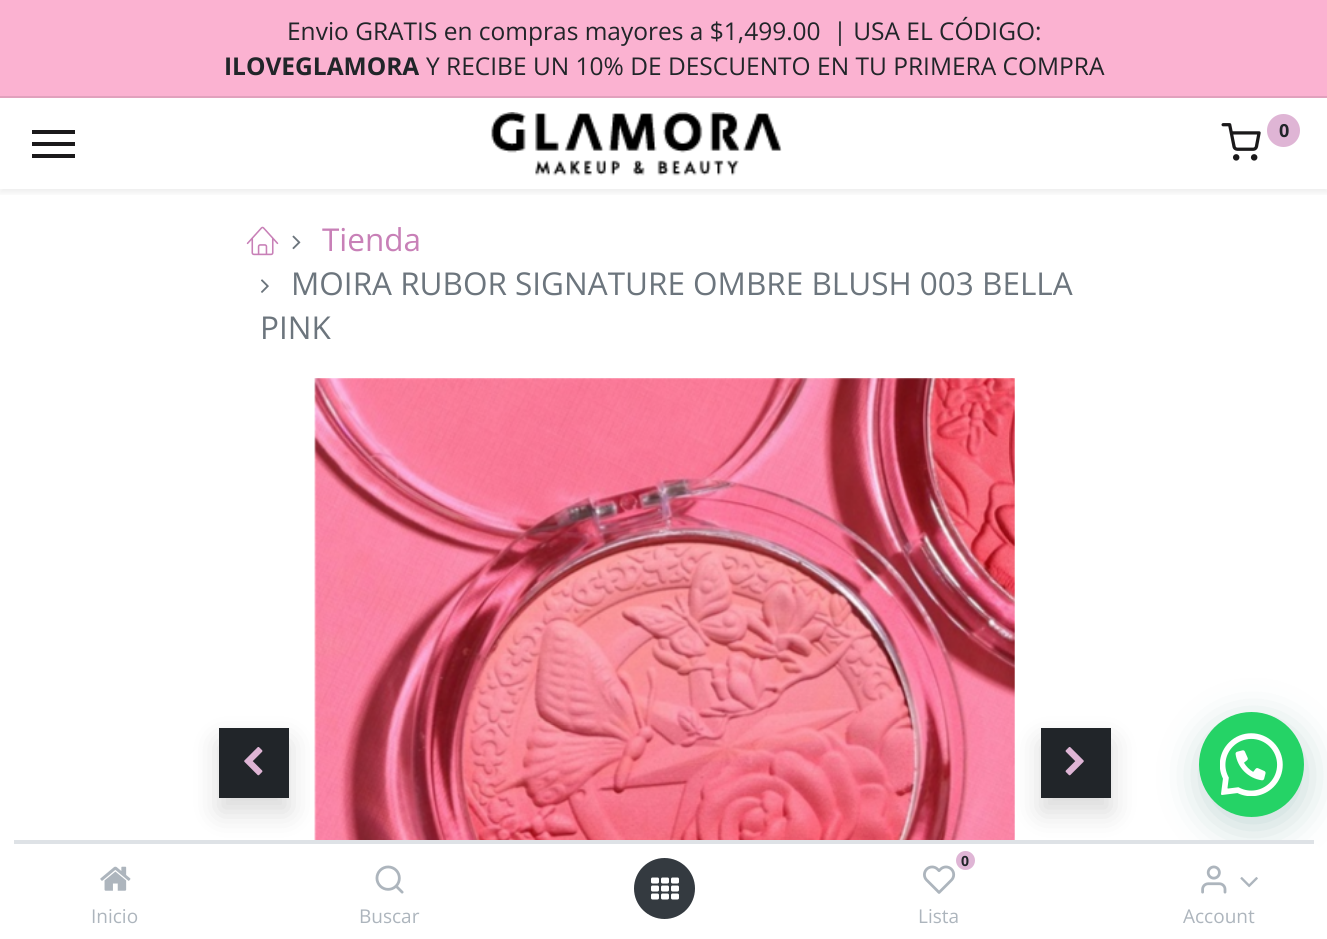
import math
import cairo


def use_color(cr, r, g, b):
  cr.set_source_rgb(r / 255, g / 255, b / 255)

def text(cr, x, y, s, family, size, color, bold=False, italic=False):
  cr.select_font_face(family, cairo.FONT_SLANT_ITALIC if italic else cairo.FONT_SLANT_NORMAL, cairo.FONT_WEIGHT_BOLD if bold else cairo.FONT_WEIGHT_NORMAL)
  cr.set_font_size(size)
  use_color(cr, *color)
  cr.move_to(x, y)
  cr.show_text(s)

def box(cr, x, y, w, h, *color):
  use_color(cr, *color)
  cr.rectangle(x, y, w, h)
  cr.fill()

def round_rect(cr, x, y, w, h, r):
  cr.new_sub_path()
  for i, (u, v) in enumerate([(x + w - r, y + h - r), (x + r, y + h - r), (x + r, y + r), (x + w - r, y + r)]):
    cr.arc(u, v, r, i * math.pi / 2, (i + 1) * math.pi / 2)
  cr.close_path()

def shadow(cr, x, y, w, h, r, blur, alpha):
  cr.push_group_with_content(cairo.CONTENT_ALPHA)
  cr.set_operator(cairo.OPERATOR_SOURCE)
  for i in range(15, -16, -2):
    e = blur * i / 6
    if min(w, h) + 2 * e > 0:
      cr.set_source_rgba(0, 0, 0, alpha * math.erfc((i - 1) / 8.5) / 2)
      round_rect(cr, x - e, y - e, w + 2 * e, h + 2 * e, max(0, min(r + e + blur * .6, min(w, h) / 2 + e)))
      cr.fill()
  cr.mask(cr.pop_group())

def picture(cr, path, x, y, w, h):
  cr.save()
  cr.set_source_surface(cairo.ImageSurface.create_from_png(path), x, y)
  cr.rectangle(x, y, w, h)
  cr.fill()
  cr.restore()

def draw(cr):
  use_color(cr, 255, 255, 255)
  cr.paint()
  box(cr, 0, 0, 1327, 96, 251, 178, 209)
  box(cr, 0, 96, 1327, 2, 225, 161, 189)
  cr.save()
  cr.rectangle(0, 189, 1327, 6)
  cr.clip()
  use_color(cr, 0, 0, 0)
  shadow(cr, 0, 102, 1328, 91, 0, 3.5, 0.07)
  cr.restore()
  box(cr, 32, 130, 43, 4, 26, 25, 26)
  box(cr, 32, 142, 43, 4, 26, 25, 26)
  box(cr, 32, 154, 43, 4, 26, 25, 26)
  picture(cr, "img_01.png", 491, 112, 291, 64)
  picture(cr, "img_02.png", 1221, 123, 40, 38)
  use_color(cr, 223, 181, 213)
  cr.arc(1283.5, 130.5, 16.5, 0, 2 * math.pi)
  cr.fill()
  picture(cr, "img_03.png", 246, 226, 33, 30)
  picture(cr, "img_04.png", 292, 235, 9, 15)
  picture(cr, "img_05.png", 261, 279, 8, 14)
  picture(cr, "img_07.png", 314, 378, 701, 462)
  use_color(cr, 0, 0, 0)
  shadow(cr, 219, 742, 70, 70, 0, 14, 0.15)
  box(cr, 219, 728, 70, 70, 33, 37, 41)
  picture(cr, "img_06.png", 244, 747, 19, 29)
  use_color(cr, 0, 0, 0)
  shadow(cr, 1041, 742, 70, 70, 0, 14, 0.15)
  box(cr, 1041, 728, 70, 70, 33, 37, 41)
  picture(cr, "img_08.png", 1065, 747, 19, 29)
  use_color(cr, 7, 94, 84)
  shadow(cr, 1201, 723, 105, 105, 52.5, 21, 0.24)
  use_color(cr, 37, 211, 102)
  cr.arc(1251.5, 764.5, 52.5, 0, 2 * math.pi)
  cr.fill()
  picture(cr, "img_09.png", 1220, 733, 63, 63)
  use_color(cr, 255, 255, 255)
  cr.new_path()
  cr.move_to(28, 840)
  cr.line_to(1300, 840)
  cr.curve_to(1315.5, 840, 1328, 852.5, 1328, 868)
  cr.line_to(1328, 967)
  cr.line_to(0, 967)
  cr.line_to(0, 868)
  cr.curve_to(0, 852.5, 12.5, 840, 28, 840)
  cr.close_path()
  cr.fill()
  box(cr, 14, 840, 1300, 4, 222, 226, 230)
  picture(cr, "img_10.png", 100, 866, 31, 25)
  picture(cr, "img_11.png", 375, 865, 29, 29)
  use_color(cr, 52, 58, 64)
  cr.arc(664.5, 888.5, 30.5, 0, 2 * math.pi)
  cr.fill()
  picture(cr, "img_12.png", 651, 877, 28, 23)
  use_color(cr, 223, 181, 213)
  cr.arc(965.5, 860.5, 9.5, 0, 2 * math.pi)
  cr.fill()
  picture(cr, "img_13.png", 923, 865, 33, 29)
  picture(cr, "img_14.png", 1201, 865, 26, 29)
  picture(cr, "img_15.png", 1240, 877, 18, 11)
  text(cr, 287, 40, "Envio GRATIS en compras mayores a $1,499.00  | USA EL CÓDIGO:", "Open Sans", 24.5, (33, 37, 41))
  text(cr, 224, 75, "ILOVEGLAMORA", "Open Sans", 24.5, (33, 37, 41), bold=True)
  text(cr, 426, 75, "Y RECIBE UN 10% DE DESCUENTO EN TU PRIMERA COMPRA", "Open Sans", 24.5, (33, 37, 41))
  text(cr, 1279, 137, "0", "Open Sans", 18, (33, 37, 41), bold=True)
  text(cr, 322, 251, "Tienda", "Open Sans", 31.5, (200, 128, 183))
  text(cr, 291, 295, "MOIRA RUBOR SIGNATURE OMBRE BLUSH 003 BELLA", "Open Sans", 31.5, (108, 117, 125))
  text(cr, 260, 339, "PINK", "Open Sans", 31.5, (108, 117, 125))
  text(cr, 91, 923, "Inicio", "Open Sans", 19, (173, 181, 189))
  text(cr, 359, 923, "Buscar", "Open Sans", 19, (173, 181, 189))
  text(cr, 961, 866, "0", "Open Sans", 14, (33, 37, 41), bold=True)
  text(cr, 918, 923, "Lista", "Open Sans", 19, (173, 181, 189))
  text(cr, 1183, 923, "Account", "Open Sans", 19, (173, 181, 189))


surface = cairo.ImageSurface(cairo.FORMAT_RGB24, 1327, 939)
cr = cairo.Context(surface)
options = cairo.FontOptions()
options.set_hint_metrics(cairo.HINT_METRICS_OFF)
options.set_hint_style(cairo.HINT_STYLE_NONE)
cr.set_font_options(options)
cr.set_miter_limit(4)
draw(cr)
surface.write_to_png("out.png")
